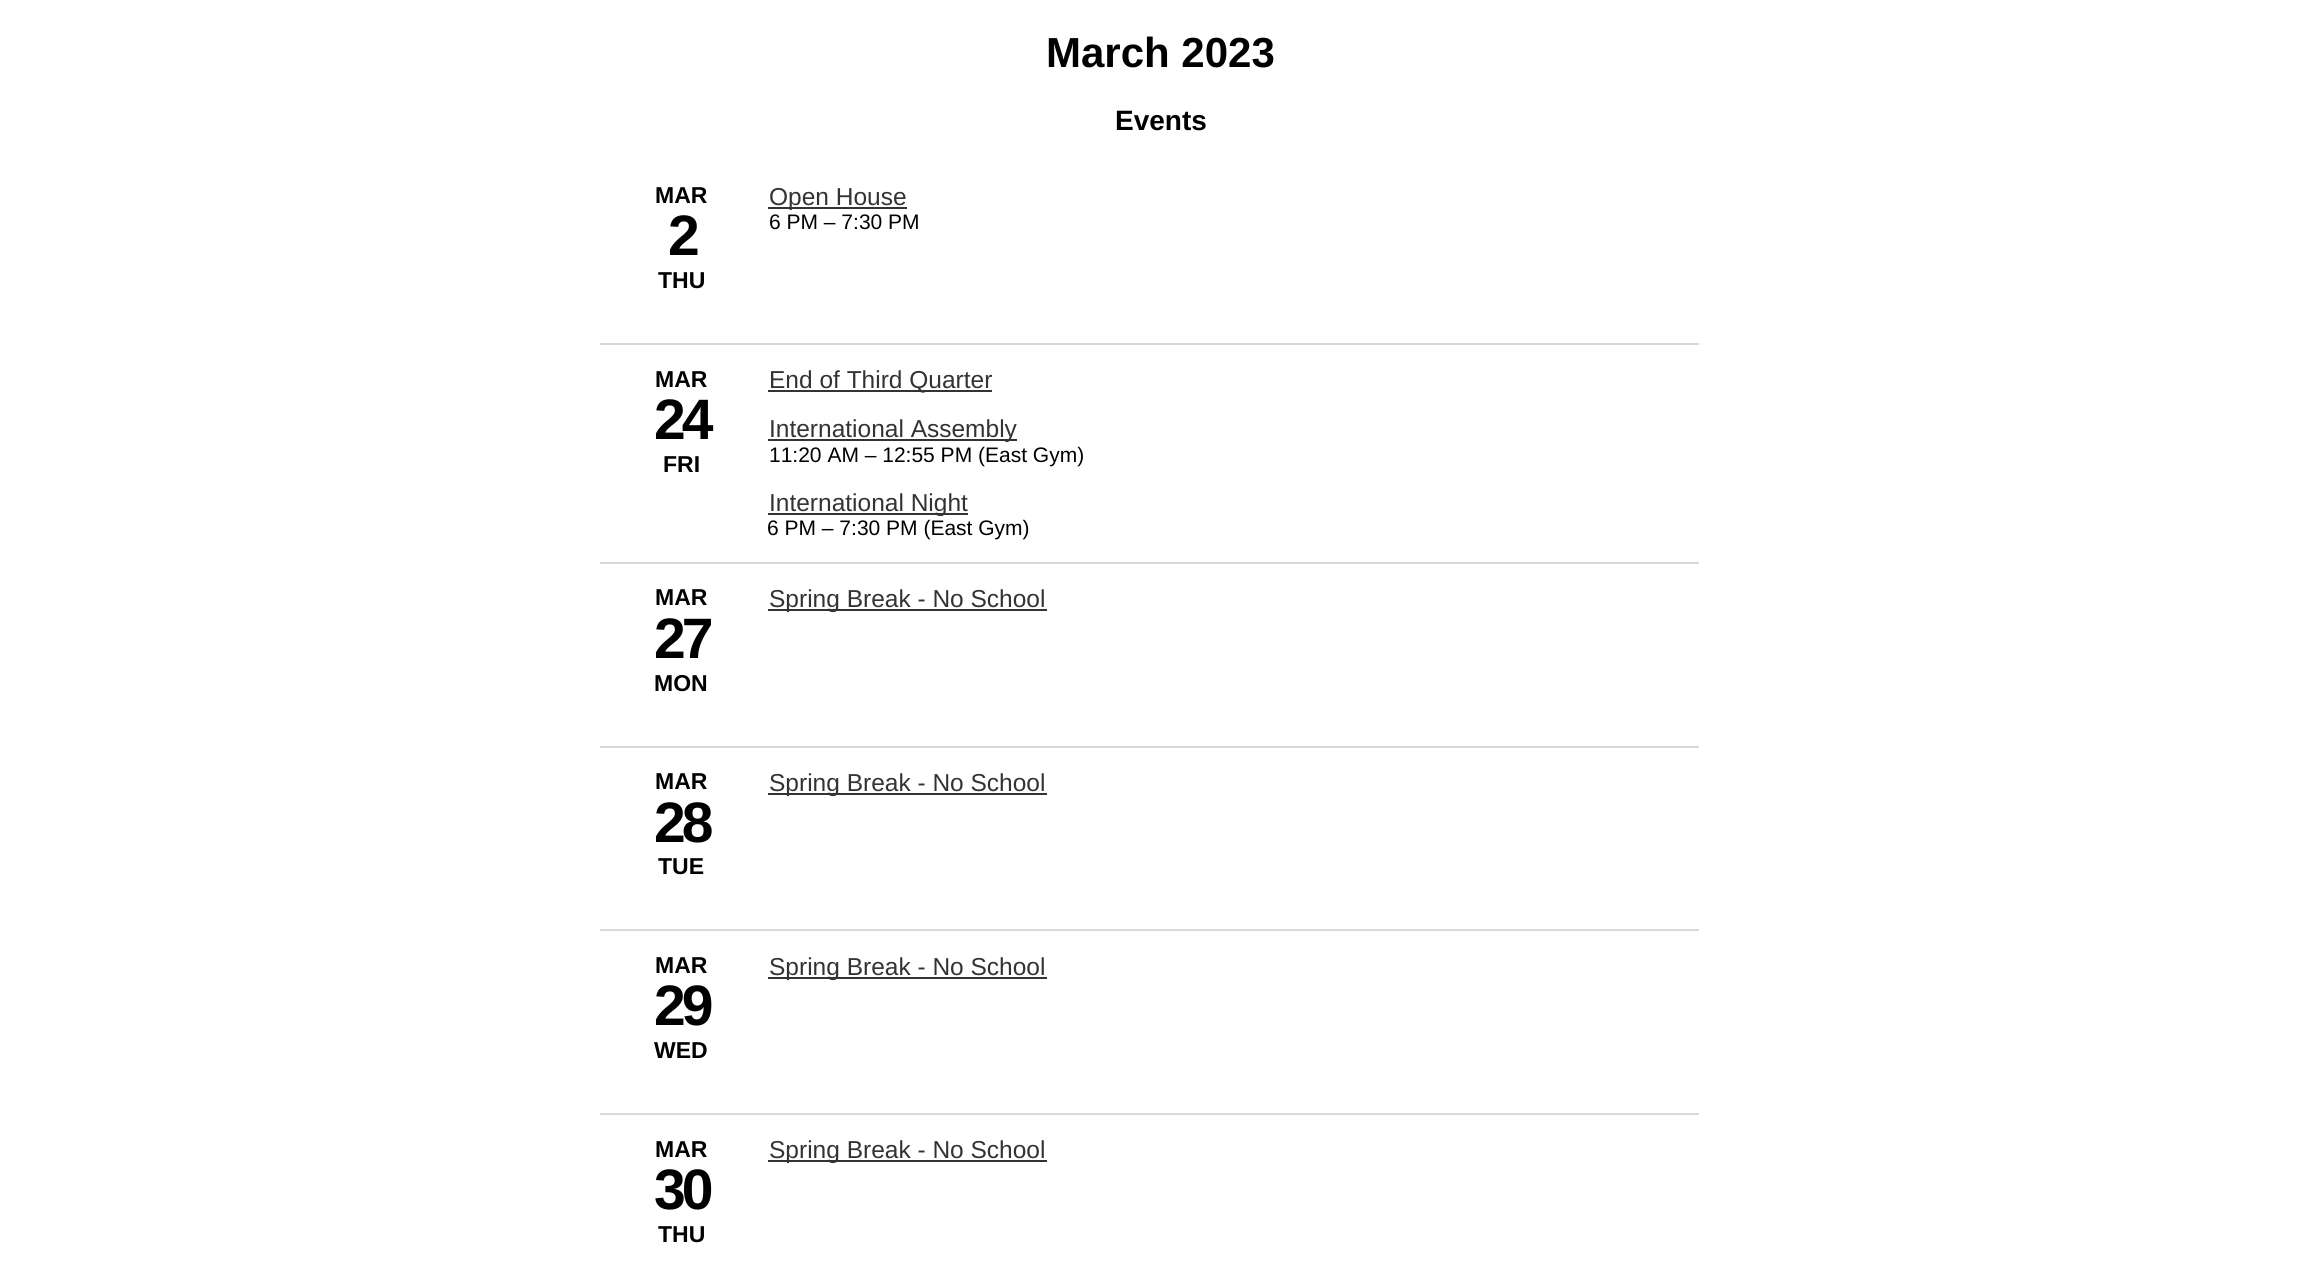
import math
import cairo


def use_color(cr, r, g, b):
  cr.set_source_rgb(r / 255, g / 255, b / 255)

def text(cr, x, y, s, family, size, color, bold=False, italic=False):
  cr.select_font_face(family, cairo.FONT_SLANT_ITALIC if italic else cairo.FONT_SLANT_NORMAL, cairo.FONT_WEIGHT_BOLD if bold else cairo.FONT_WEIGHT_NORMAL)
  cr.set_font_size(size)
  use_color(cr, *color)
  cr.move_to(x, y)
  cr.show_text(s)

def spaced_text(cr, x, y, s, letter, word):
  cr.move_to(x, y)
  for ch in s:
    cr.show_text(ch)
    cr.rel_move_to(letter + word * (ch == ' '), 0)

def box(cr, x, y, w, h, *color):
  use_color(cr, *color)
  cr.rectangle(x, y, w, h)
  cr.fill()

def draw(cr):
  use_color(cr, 255, 255, 255)
  cr.paint()
  box(cr, 768, 207, 139, 2, 51, 51, 51)
  box(cr, 600, 343, 1099, 2, 217, 217, 217)
  box(cr, 768, 390, 224, 2, 51, 51, 51)
  box(cr, 768, 439, 249, 2, 51, 51, 51)
  box(cr, 768, 513, 200, 2, 51, 51, 51)
  box(cr, 600, 562, 1099, 2, 217, 217, 217)
  box(cr, 768, 609, 279, 2, 51, 51, 51)
  box(cr, 600, 746, 1099, 2, 217, 217, 217)
  box(cr, 768, 793, 279, 2, 51, 51, 51)
  box(cr, 600, 929, 1099, 2, 217, 217, 217)
  box(cr, 768, 977, 279, 2, 51, 51, 51)
  box(cr, 600, 1113, 1099, 2, 217, 217, 217)
  box(cr, 768, 1160, 279, 2, 51, 51, 51)
  text(cr, 1046, 67, "March 2023", "Liberation Sans", 42, (0, 0, 0), bold=True)
  text(cr, 1115, 130, "Events", "Liberation Sans", 28, (0, 0, 0), bold=True)
  text(cr, 655, 203, "MAR", "Liberation Sans", 23, (0, 0, 0), bold=True)
  cr.set_font_size(57)
  spaced_text(cr, 668, 255, "2", -4, 0)
  text(cr, 658, 288, "THU", "Liberation Sans", 23, (0, 0, 0), bold=True)
  text(cr, 769, 205, "Open House", "Liberation Sans", 24.5, (51, 51, 51))
  text(cr, 769, 229, "6 PM – 7:30 PM", "Liberation Sans", 21, (0, 0, 0))
  text(cr, 655, 387, "MAR", "Liberation Sans", 23, (0, 0, 0), bold=True)
  cr.set_font_size(57)
  spaced_text(cr, 654, 439, "24", -4, 0)
  text(cr, 663, 472, "FRI", "Liberation Sans", 23, (0, 0, 0), bold=True)
  text(cr, 769, 388, "End of Third Quarter", "Liberation Sans", 24.5, (51, 51, 51))
  text(cr, 769, 437, "International Assembly", "Liberation Sans", 24.5, (51, 51, 51))
  text(cr, 769, 462, "11:20 AM – 12:55 PM (East Gym)", "Liberation Sans", 21, (0, 0, 0))
  text(cr, 769, 511, "International Night", "Liberation Sans", 24.5, (51, 51, 51))
  text(cr, 767, 535, "6 PM – 7:30 PM (East Gym)", "Liberation Sans", 21, (0, 0, 0))
  text(cr, 655, 605, "MAR", "Liberation Sans", 23, (0, 0, 0), bold=True)
  cr.set_font_size(57)
  spaced_text(cr, 654, 658, "27", -4, 0)
  text(cr, 654, 691, "MON", "Liberation Sans", 23, (0, 0, 0), bold=True)
  text(cr, 769, 607, "Spring Break - No School", "Liberation Sans", 24.5, (51, 51, 51))
  text(cr, 655, 789, "MAR", "Liberation Sans", 23, (0, 0, 0), bold=True)
  cr.set_font_size(57)
  spaced_text(cr, 654, 842, "28", -4, 0)
  text(cr, 658, 874, "TUE", "Liberation Sans", 23, (0, 0, 0), bold=True)
  text(cr, 769, 791, "Spring Break - No School", "Liberation Sans", 24.5, (51, 51, 51))
  text(cr, 655, 973, "MAR", "Liberation Sans", 23, (0, 0, 0), bold=True)
  cr.set_font_size(57)
  spaced_text(cr, 654, 1025, "29", -4, 0)
  text(cr, 654, 1058, "WED", "Liberation Sans", 23, (0, 0, 0), bold=True)
  text(cr, 769, 975, "Spring Break - No School", "Liberation Sans", 24.5, (51, 51, 51))
  text(cr, 655, 1157, "MAR", "Liberation Sans", 23, (0, 0, 0), bold=True)
  cr.set_font_size(57)
  spaced_text(cr, 654, 1209, "30", -4, 0)
  text(cr, 658, 1242, "THU", "Liberation Sans", 23, (0, 0, 0), bold=True)
  text(cr, 769, 1158, "Spring Break - No School", "Liberation Sans", 24.5, (51, 51, 51))


surface = cairo.ImageSurface(cairo.FORMAT_RGB24, 2319, 1263)
cr = cairo.Context(surface)
options = cairo.FontOptions()
options.set_hint_metrics(cairo.HINT_METRICS_OFF)
options.set_hint_style(cairo.HINT_STYLE_NONE)
cr.set_font_options(options)
cr.set_miter_limit(4)
draw(cr)
surface.write_to_png("out.png")
